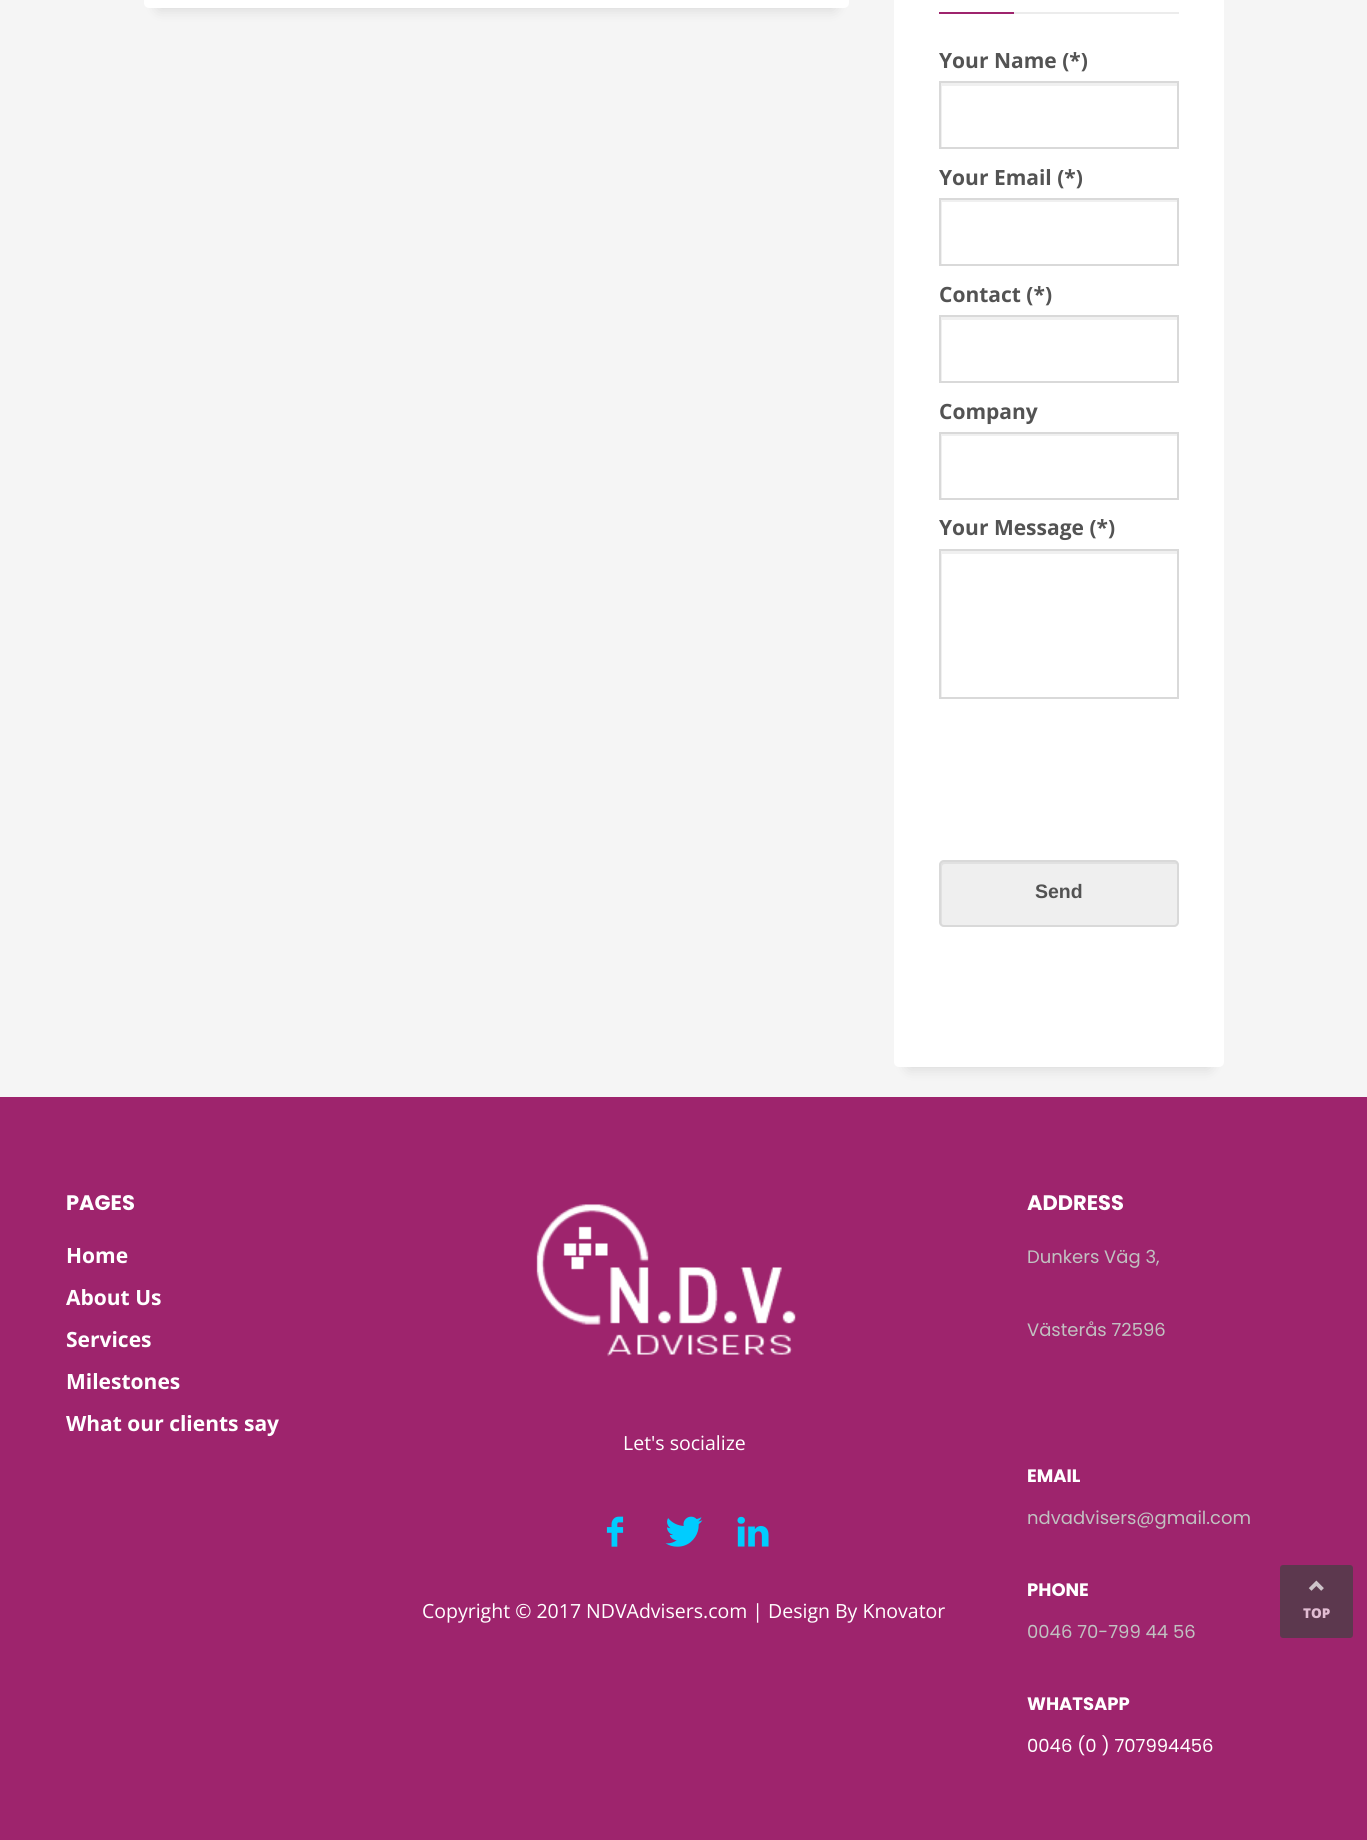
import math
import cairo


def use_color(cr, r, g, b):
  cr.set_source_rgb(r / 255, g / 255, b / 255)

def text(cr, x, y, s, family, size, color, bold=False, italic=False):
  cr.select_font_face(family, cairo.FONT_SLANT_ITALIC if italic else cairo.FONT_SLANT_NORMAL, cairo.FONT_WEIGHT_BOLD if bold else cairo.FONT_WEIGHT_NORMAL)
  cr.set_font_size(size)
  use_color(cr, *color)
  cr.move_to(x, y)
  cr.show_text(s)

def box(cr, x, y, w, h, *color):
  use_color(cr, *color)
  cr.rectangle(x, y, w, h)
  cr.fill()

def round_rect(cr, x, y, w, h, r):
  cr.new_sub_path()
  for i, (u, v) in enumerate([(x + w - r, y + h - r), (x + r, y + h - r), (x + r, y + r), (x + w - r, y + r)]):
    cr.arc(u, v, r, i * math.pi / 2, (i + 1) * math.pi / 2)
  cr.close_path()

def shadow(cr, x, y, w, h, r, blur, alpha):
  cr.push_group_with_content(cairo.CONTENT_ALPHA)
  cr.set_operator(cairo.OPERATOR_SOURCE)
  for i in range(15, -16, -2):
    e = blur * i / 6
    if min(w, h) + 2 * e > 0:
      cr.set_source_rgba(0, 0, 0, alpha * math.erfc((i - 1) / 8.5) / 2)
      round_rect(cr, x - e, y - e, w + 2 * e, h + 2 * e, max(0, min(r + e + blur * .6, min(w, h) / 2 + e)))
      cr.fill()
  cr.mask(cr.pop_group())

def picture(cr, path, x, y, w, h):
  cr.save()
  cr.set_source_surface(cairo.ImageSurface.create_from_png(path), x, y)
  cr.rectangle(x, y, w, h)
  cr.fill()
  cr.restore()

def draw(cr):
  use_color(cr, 245, 245, 245)
  cr.paint()
  use_color(cr, 0, 0, 0)
  shadow(cr, 159, -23, 675, 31, 0, 7.5, 0.15)
  use_color(cr, 255, 255, 255)
  round_rect(cr, 144, -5, 705, 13, 5)
  cr.fill()
  use_color(cr, 0, 0, 0)
  shadow(cr, 909, -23, 300, 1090, 0, 7.5, 0.15)
  use_color(cr, 255, 255, 255)
  round_rect(cr, 894, -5, 330, 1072, 5)
  cr.fill()
  box(cr, 939, 12, 75, 2, 158, 36, 109)
  box(cr, 1014, 12, 165, 2, 236, 236, 236)
  cr.save()
  cr.rectangle(941, 83, 237, 64)
  cr.clip()
  use_color(cr, 240, 240, 240)
  cr.set_fill_rule(cairo.FILL_RULE_EVEN_ODD)
  cr.new_path()
  cr.move_to(792, -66)
  cr.line_to(1326, -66)
  cr.line_to(1326, 296)
  cr.line_to(792, 296)
  cr.close_path()
  cr.move_to(942, 86)
  cr.line_to(1179, 86)
  cr.line_to(1179, 150)
  cr.line_to(942, 150)
  cr.close_path()
  cr.fill()
  cr.restore()
  cr.rectangle(940, 82, 238, 66)
  use_color(cr, 217, 217, 217)
  cr.stroke()
  cr.save()
  cr.rectangle(941, 200, 237, 64)
  cr.clip()
  use_color(cr, 240, 240, 240)
  cr.set_fill_rule(cairo.FILL_RULE_EVEN_ODD)
  cr.new_path()
  cr.move_to(792, 51)
  cr.line_to(1326, 51)
  cr.line_to(1326, 412)
  cr.line_to(792, 412)
  cr.close_path()
  cr.move_to(942, 202)
  cr.line_to(1179, 202)
  cr.line_to(1179, 267)
  cr.line_to(942, 267)
  cr.close_path()
  cr.fill()
  cr.restore()
  cr.rectangle(940, 199, 238, 66)
  cr.stroke()
  cr.save()
  cr.rectangle(941, 317, 237, 64)
  cr.clip()
  use_color(cr, 240, 240, 240)
  cr.set_fill_rule(cairo.FILL_RULE_EVEN_ODD)
  cr.new_path()
  cr.move_to(792, 168)
  cr.line_to(1326, 168)
  cr.line_to(1326, 530)
  cr.line_to(792, 530)
  cr.close_path()
  cr.move_to(942, 320)
  cr.line_to(1179, 320)
  cr.line_to(1179, 384)
  cr.line_to(942, 384)
  cr.close_path()
  cr.fill()
  cr.restore()
  cr.rectangle(940, 316, 238, 66)
  cr.stroke()
  cr.save()
  cr.rectangle(941, 434, 237, 64)
  cr.clip()
  use_color(cr, 240, 240, 240)
  cr.set_fill_rule(cairo.FILL_RULE_EVEN_ODD)
  cr.new_path()
  cr.move_to(792, 285)
  cr.line_to(1326, 285)
  cr.line_to(1326, 646)
  cr.line_to(792, 646)
  cr.close_path()
  cr.move_to(942, 436)
  cr.line_to(1179, 436)
  cr.line_to(1179, 501)
  cr.line_to(942, 501)
  cr.close_path()
  cr.fill()
  cr.restore()
  cr.rectangle(940, 433, 238, 66)
  cr.stroke()
  cr.save()
  cr.rectangle(941, 551, 237, 147)
  cr.clip()
  use_color(cr, 240, 240, 240)
  cr.set_fill_rule(cairo.FILL_RULE_EVEN_ODD)
  cr.new_path()
  cr.move_to(792, 402)
  cr.line_to(1326, 402)
  cr.line_to(1326, 846)
  cr.line_to(792, 846)
  cr.close_path()
  cr.move_to(942, 554)
  cr.line_to(1179, 554)
  cr.line_to(1179, 700)
  cr.line_to(942, 700)
  cr.close_path()
  cr.fill()
  cr.restore()
  cr.rectangle(940, 550, 238, 148)
  cr.stroke()
  use_color(cr, 239, 239, 239)
  round_rect(cr, 939, 860, 240, 67, 5)
  cr.fill()
  use_color(cr, 225, 225, 225)
  cr.new_path()
  cr.move_to(945, 864)
  cr.line_to(1176, 864)
  cr.line_to(1178, 865)
  cr.line_to(1178, 864)
  cr.curve_to(1178, 862, 1177, 861, 1175, 861)
  cr.line_to(944, 861)
  cr.curve_to(942, 861, 941, 862, 941, 864)
  cr.line_to(941, 923)
  cr.curve_to(941, 924, 941, 925, 942, 925)
  cr.line_to(942, 867)
  cr.curve_to(942, 865, 943, 864, 945, 864)
  cr.close_path()
  cr.fill()
  round_rect(cr, 940, 861, 238, 65, 4)
  use_color(cr, 217, 217, 217)
  cr.stroke()
  box(cr, 0, 1097, 1367, 743, 158, 36, 109)
  picture(cr, "img_01.png", 536, 1204, 260, 153)
  picture(cr, "img_02.png", 606, 1516, 18, 31)
  picture(cr, "img_03.png", 665, 1516, 38, 31)
  picture(cr, "img_04.png", 737, 1516, 32, 31)
  use_color(cr, 92, 56, 78)
  round_rect(cr, 1280, 1565, 73, 73, 3)
  cr.fill()
  picture(cr, "img_05.png", 1308, 1580, 16, 11)
  text(cr, 939, 68, "Your Name (*)", "Open Sans", 21, (83, 83, 83), bold=True)
  text(cr, 939, 185, "Your Email (*)", "Open Sans", 21, (83, 83, 83), bold=True)
  text(cr, 939, 302, "Contact (*)", "Open Sans", 21, (83, 83, 83), bold=True)
  text(cr, 939, 419, "Company", "Open Sans", 21, (83, 83, 83), bold=True)
  text(cr, 939, 535, "Your Message (*)", "Open Sans", 21, (83, 83, 83), bold=True)
  text(cr, 1035, 898, "Send", "Liberation Sans", 19.5, (83, 83, 83), bold=True)
  text(cr, 66, 1210, "PAGES", "Poppins", 21, (255, 255, 255), bold=True)
  text(cr, 66, 1263, "Home", "Open Sans", 21, (255, 255, 255), bold=True)
  text(cr, 66, 1305, "About Us", "Open Sans", 21, (255, 255, 255), bold=True)
  text(cr, 66, 1347, "Services", "Open Sans", 21, (255, 255, 255), bold=True)
  text(cr, 66, 1389, "Milestones", "Open Sans", 21, (255, 255, 255), bold=True)
  text(cr, 66, 1431, "What our clients say", "Open Sans", 21, (255, 255, 255), bold=True)
  text(cr, 623, 1450, "Let's socialize", "Open Sans", 19.5, (255, 255, 255))
  text(cr, 422, 1618, "Copyright © 2017 NDVAdvisers.com | Design By Knovator", "Open Sans", 19.5, (255, 255, 255))
  text(cr, 1027, 1210, "ADDRESS", "Poppins", 21, (255, 255, 255), bold=True)
  text(cr, 1027, 1263, "Dunkers Väg 3,", "Poppins", 18, (193, 193, 193))
  text(cr, 1027, 1336, "Västerås 72596", "Poppins", 18, (193, 193, 193))
  text(cr, 1027, 1482, "EMAIL", "Poppins", 18, (255, 255, 255), bold=True)
  text(cr, 1027, 1524, "ndvadvisers@gmail.com", "Poppins", 18, (193, 193, 193))
  text(cr, 1027, 1596, "PHONE", "Poppins", 18, (255, 255, 255), bold=True)
  text(cr, 1027, 1638, "0046 70-799 44 56", "Poppins", 18, (193, 193, 193))
  text(cr, 1027, 1710, "WHATSAPP", "Poppins", 18, (255, 255, 255), bold=True)
  text(cr, 1027, 1752, "0046 (0 ) 707994456", "Poppins", 18, (255, 255, 255))
  text(cr, 1303, 1618, "TOP", "Open Sans ExtraBold", 13.5, (226, 189, 211))


surface = cairo.ImageSurface(cairo.FORMAT_RGB24, 1367, 1840)
cr = cairo.Context(surface)
options = cairo.FontOptions()
options.set_hint_metrics(cairo.HINT_METRICS_OFF)
options.set_hint_style(cairo.HINT_STYLE_NONE)
cr.set_font_options(options)
cr.set_miter_limit(4)
draw(cr)
surface.write_to_png("out.png")
